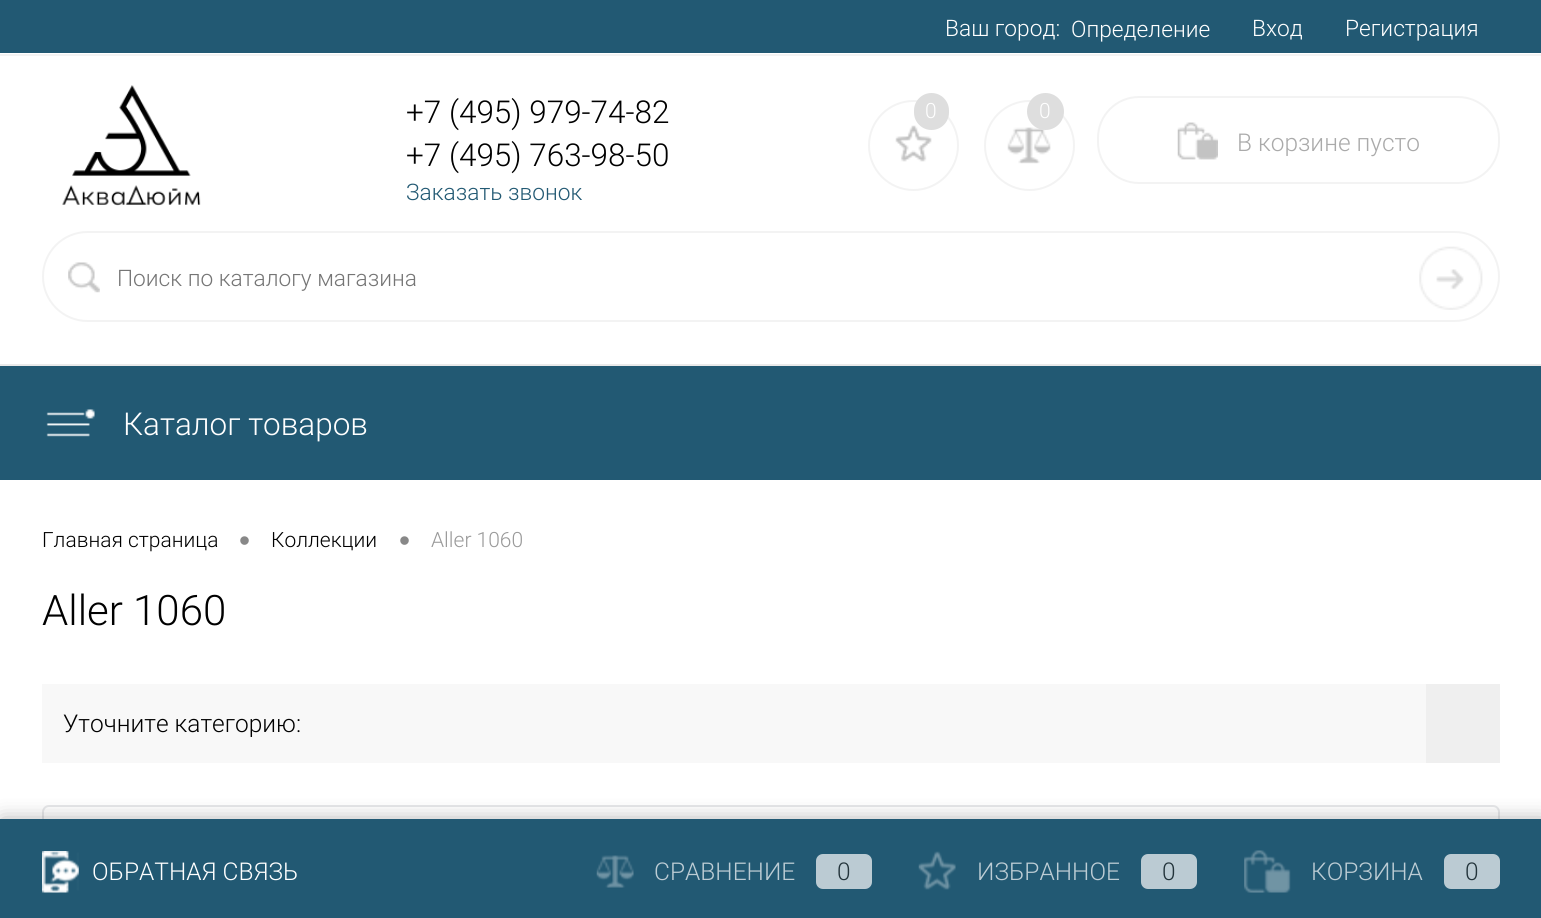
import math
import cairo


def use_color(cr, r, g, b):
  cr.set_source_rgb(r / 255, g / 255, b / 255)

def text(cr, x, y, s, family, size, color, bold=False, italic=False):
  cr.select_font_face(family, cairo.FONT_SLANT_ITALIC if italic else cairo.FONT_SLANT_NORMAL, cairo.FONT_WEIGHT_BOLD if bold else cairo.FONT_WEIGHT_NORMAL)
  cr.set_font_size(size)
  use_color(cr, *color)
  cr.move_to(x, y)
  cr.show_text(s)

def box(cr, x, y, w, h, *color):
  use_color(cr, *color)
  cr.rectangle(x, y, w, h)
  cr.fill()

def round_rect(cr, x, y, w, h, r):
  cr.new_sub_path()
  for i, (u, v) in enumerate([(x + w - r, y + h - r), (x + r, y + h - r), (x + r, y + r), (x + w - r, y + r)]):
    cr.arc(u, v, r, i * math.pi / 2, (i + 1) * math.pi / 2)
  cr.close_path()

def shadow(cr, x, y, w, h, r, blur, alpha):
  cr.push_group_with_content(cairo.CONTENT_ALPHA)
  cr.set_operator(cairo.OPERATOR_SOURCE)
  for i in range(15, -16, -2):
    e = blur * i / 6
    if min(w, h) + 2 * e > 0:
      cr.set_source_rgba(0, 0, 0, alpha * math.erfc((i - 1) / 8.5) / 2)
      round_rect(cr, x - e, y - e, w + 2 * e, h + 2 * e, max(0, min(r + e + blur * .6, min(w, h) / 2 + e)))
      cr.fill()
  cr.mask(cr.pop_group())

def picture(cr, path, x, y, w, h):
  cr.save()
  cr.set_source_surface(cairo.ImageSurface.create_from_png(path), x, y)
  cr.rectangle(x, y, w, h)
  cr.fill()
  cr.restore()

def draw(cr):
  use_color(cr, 255, 255, 255)
  cr.paint()
  box(cr, 0, 0, 1541, 53, 34, 89, 115)
  box(cr, 0, 54, 1541, 2, 243, 243, 243)
  box(cr, 0, 364, 1541, 2, 234, 234, 234)
  picture(cr, "img_01.png", 62, 85, 139, 121)
  picture(cr, "img_02.png", 895, 125, 37, 37)
  cr.arc(913.5, 145.5, 44.5, 0, 2 * math.pi)
  use_color(cr, 243, 243, 243)
  cr.stroke()
  use_color(cr, 222, 222, 222)
  round_rect(cr, 914, 93, 35, 37, 17.5)
  cr.fill()
  picture(cr, "img_03.png", 1007, 127, 44, 37)
  cr.arc(1029.5, 145.5, 44.5, 0, 2 * math.pi)
  use_color(cr, 243, 243, 243)
  cr.stroke()
  use_color(cr, 222, 222, 222)
  cr.arc(1045.5, 111.5, 18.5, 0, 2 * math.pi)
  cr.fill()
  round_rect(cr, 1098, 97, 401, 86, 41)
  use_color(cr, 243, 243, 243)
  cr.stroke()
  picture(cr, "img_04.png", 1177, 122, 41, 38)
  round_rect(cr, 43, 232, 1456, 89, 44.5)
  cr.stroke()
  picture(cr, "img_05.png", 68, 262, 32, 31)
  picture(cr, "img_06.png", 1419, 246, 64, 64)
  box(cr, 0, 366, 1541, 114, 34, 89, 115)
  picture(cr, "img_07.png", 46, 409, 49, 28)
  box(cr, 42, 684, 1384, 79, 248, 248, 248)
  box(cr, 1426, 684, 74, 79, 239, 239, 239)
  round_rect(cr, 43, 806, 1456, 98, 6)
  use_color(cr, 231, 232, 234)
  cr.stroke()
  use_color(cr, 0, 0, 0)
  shadow(cr, 2, 821, 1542, 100, 0, 10.5, 0.35)
  box(cr, 0, 819, 1541, 99, 34, 89, 115)
  picture(cr, "img_08.png", 42, 851, 37, 42)
  picture(cr, "img_09.png", 596, 855, 38, 33)
  use_color(cr, 187, 203, 211)
  round_rect(cr, 816, 854, 56, 35, 7)
  cr.fill()
  picture(cr, "img_10.png", 918, 851, 38, 39)
  round_rect(cr, 1141, 854, 56, 35, 7)
  cr.fill()
  picture(cr, "img_11.png", 1244, 850, 47, 43)
  round_rect(cr, 1444, 854, 56, 35, 7)
  cr.fill()
  text(cr, 945, 36, "Ваш город:", "Roboto Light", 22.75, (255, 255, 255))
  text(cr, 1071, 37, "Определение", "Roboto Light", 22.75, (255, 255, 255))
  text(cr, 1252, 36, "Вход", "Roboto Light", 22.75, (255, 255, 255))
  text(cr, 1345, 36, "Регистрация", "Roboto Light", 22.75, (255, 255, 255))
  text(cr, 406, 123, "+7 (495) 979-74-82", "Roboto Light", 31.5, (0, 0, 0))
  text(cr, 406, 166, "+7 (495) 763-98-50", "Roboto Light", 31.5, (0, 0, 0))
  text(cr, 406, 200, "Заказать звонок", "Roboto Light", 22.75, (34, 89, 115))
  text(cr, 925, 118, "0", "Roboto Light", 21, (255, 255, 255))
  text(cr, 1039, 118, "0", "Roboto Light", 21, (255, 255, 255))
  text(cr, 1237, 151, "В корзине пусто", "Roboto Light", 24.5, (170, 170, 170))
  text(cr, 117, 286, "Поиск по каталогу магазина", "Roboto Light", 22.75, (117, 117, 117))
  text(cr, 123, 435, "Каталог товаров", "Roboto Light", 31.5, (255, 255, 255))
  text(cr, 42, 547, "Главная страница", "Roboto Light", 21, (0, 0, 0))
  text(cr, 239, 551, "•", "Liberation Sans", 31.5, (136, 136, 136))
  text(cr, 271, 547, "Коллекции", "Roboto Light", 21, (0, 0, 0))
  text(cr, 399, 551, "•", "Liberation Sans", 31.5, (136, 136, 136))
  text(cr, 431, 547, "Aller 1060", "Roboto Light", 21, (153, 153, 153))
  text(cr, 42, 625, "Aller 1060", "Roboto Light", 42, (0, 0, 0))
  text(cr, 63, 732, "Уточните категорию:", "Roboto Light", 24.5, (0, 0, 0))
  text(cr, 92, 880, "ОБРАТНАЯ СВЯЗЬ", "Roboto Light", 24.5, (255, 255, 255))
  text(cr, 654, 880, "СРАВНЕНИЕ", "Roboto Light", 24.5, (189, 205, 213))
  text(cr, 837, 880, "0", "Roboto Light", 24.5, (34, 51, 58))
  text(cr, 977, 880, "ИЗБРАННОЕ", "Roboto Light", 24.5, (189, 205, 213))
  text(cr, 1162, 880, "0", "Roboto Light", 24.5, (34, 51, 58))
  text(cr, 1311, 880, "КОРЗИНА", "Roboto Light", 24.5, (189, 205, 213))
  text(cr, 1465, 880, "0", "Roboto Light", 24.5, (34, 51, 58))


surface = cairo.ImageSurface(cairo.FORMAT_RGB24, 1541, 918)
cr = cairo.Context(surface)
options = cairo.FontOptions()
options.set_hint_metrics(cairo.HINT_METRICS_OFF)
options.set_hint_style(cairo.HINT_STYLE_NONE)
cr.set_font_options(options)
cr.set_miter_limit(4)
draw(cr)
surface.write_to_png("out.png")
